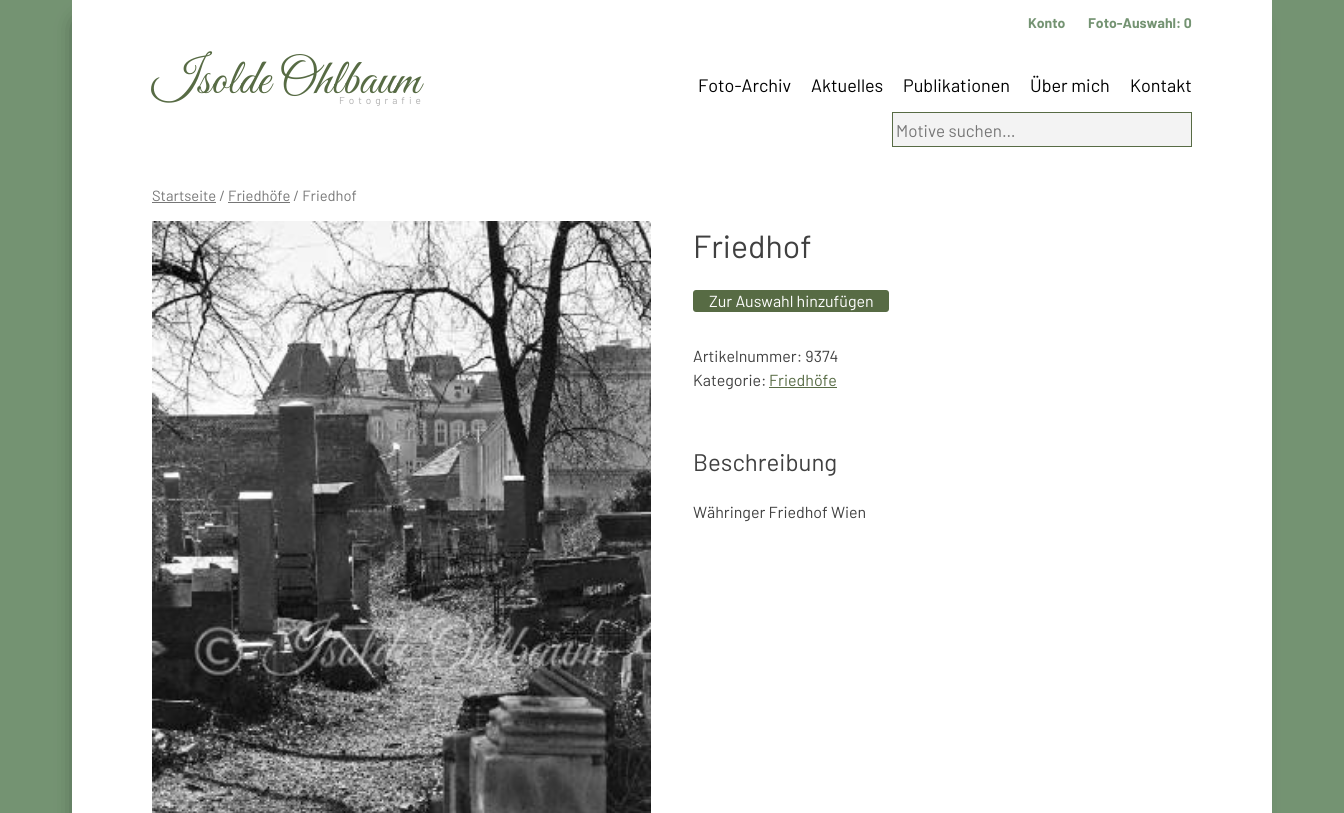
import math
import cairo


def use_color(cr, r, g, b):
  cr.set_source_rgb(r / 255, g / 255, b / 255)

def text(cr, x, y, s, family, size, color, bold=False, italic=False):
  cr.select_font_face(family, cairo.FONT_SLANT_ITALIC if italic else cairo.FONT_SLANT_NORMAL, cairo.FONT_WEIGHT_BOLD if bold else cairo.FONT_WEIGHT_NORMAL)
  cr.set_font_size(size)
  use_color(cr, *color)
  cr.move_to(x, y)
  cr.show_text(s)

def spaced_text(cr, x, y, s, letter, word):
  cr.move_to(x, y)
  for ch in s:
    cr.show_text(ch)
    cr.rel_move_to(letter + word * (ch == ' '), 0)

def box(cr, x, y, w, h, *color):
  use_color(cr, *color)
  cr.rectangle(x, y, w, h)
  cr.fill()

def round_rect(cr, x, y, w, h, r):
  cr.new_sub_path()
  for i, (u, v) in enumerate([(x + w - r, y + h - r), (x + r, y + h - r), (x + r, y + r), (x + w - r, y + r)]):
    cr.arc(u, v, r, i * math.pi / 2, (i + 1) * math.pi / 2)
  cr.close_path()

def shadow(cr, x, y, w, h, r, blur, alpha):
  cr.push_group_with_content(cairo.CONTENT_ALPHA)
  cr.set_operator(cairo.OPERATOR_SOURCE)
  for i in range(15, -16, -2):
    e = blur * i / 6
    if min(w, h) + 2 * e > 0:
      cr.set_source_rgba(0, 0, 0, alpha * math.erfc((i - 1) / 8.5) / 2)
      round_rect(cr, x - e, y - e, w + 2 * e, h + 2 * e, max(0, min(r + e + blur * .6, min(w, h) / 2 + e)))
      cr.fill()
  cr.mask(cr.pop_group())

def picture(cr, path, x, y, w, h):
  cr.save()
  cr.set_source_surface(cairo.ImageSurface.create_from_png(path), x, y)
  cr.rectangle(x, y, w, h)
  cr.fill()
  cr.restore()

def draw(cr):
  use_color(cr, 116, 147, 114)
  cr.paint()
  use_color(cr, 0, 0, 0)
  shadow(cr, 83, 25, 1168, 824, 0, 12, 0.75)
  box(cr, 72, 0, 1200, 813, 255, 255, 255)
  use_color(cr, 243, 243, 243)
  cr.rectangle(892.5, 112.5, 299, 34)
  cr.fill_preserve()
  use_color(cr, 87, 107, 68)
  cr.set_line_width(1)
  cr.stroke()
  box(cr, 152, 202, 64, 1, 118, 118, 118)
  box(cr, 228, 202, 62, 1, 118, 118, 118)
  picture(cr, "img_01.png", 152, 221, 499, 592)
  use_color(cr, 87, 107, 68)
  round_rect(cr, 693, 290, 196, 22, 3)
  cr.fill()
  box(cr, 769, 387, 68, 1, 87, 107, 68)
  text(cr, 1028, 28, "Konto", "Barlow", 14, (116, 147, 114), bold=True)
  text(cr, 1088, 28, "Foto-Auswahl: 0", "Barlow", 14, (116, 147, 114), bold=True)
  text(cr, 152, 93, "Isolde Ohlbaum", "Great Vibes", 50, (87, 107, 68))
  cr.select_font_face("Barlow")
  cr.set_font_size(10)
  use_color(cr, 175, 175, 175)
  spaced_text(cr, 339, 104, "Fotografie", 4, 0)
  text(cr, 698, 92, "Foto-Archiv", "Barlow", 18, (0, 0, 0))
  text(cr, 811, 92, "Aktuelles", "Barlow", 18, (0, 0, 0))
  text(cr, 903, 92, "Publikationen", "Barlow", 18, (0, 0, 0))
  text(cr, 1030, 92, "Über mich", "Barlow", 18, (0, 0, 0))
  text(cr, 1130, 92, "Kontakt", "Barlow", 18, (0, 0, 0))
  text(cr, 896, 137, "Motive suchen…", "Barlow", 17, (118, 118, 118))
  text(cr, 152, 201, "Startseite / Friedhöfe / Friedhof", "Barlow", 14.75, (118, 118, 118))
  text(cr, 693, 258, "Friedhof", "Barlow", 32, (64, 64, 64))
  text(cr, 709, 307, "Zur Auswahl hinzufügen", "Barlow", 16, (255, 255, 255))
  text(cr, 693, 362, "Artikelnummer: 9374", "Barlow", 16, (64, 64, 64))
  text(cr, 693, 386, "Kategorie:", "Barlow", 16, (64, 64, 64))
  text(cr, 769, 386, "Friedhöfe", "Barlow", 16, (87, 107, 68))
  text(cr, 693, 471, "Beschreibung", "Barlow", 24, (64, 64, 64))
  text(cr, 693, 518, "Währinger Friedhof Wien", "Barlow", 16, (64, 64, 64))


surface = cairo.ImageSurface(cairo.FORMAT_RGB24, 1344, 813)
cr = cairo.Context(surface)
options = cairo.FontOptions()
options.set_hint_metrics(cairo.HINT_METRICS_OFF)
options.set_hint_style(cairo.HINT_STYLE_NONE)
cr.set_font_options(options)
cr.set_miter_limit(4)
draw(cr)
surface.write_to_png("out.png")
